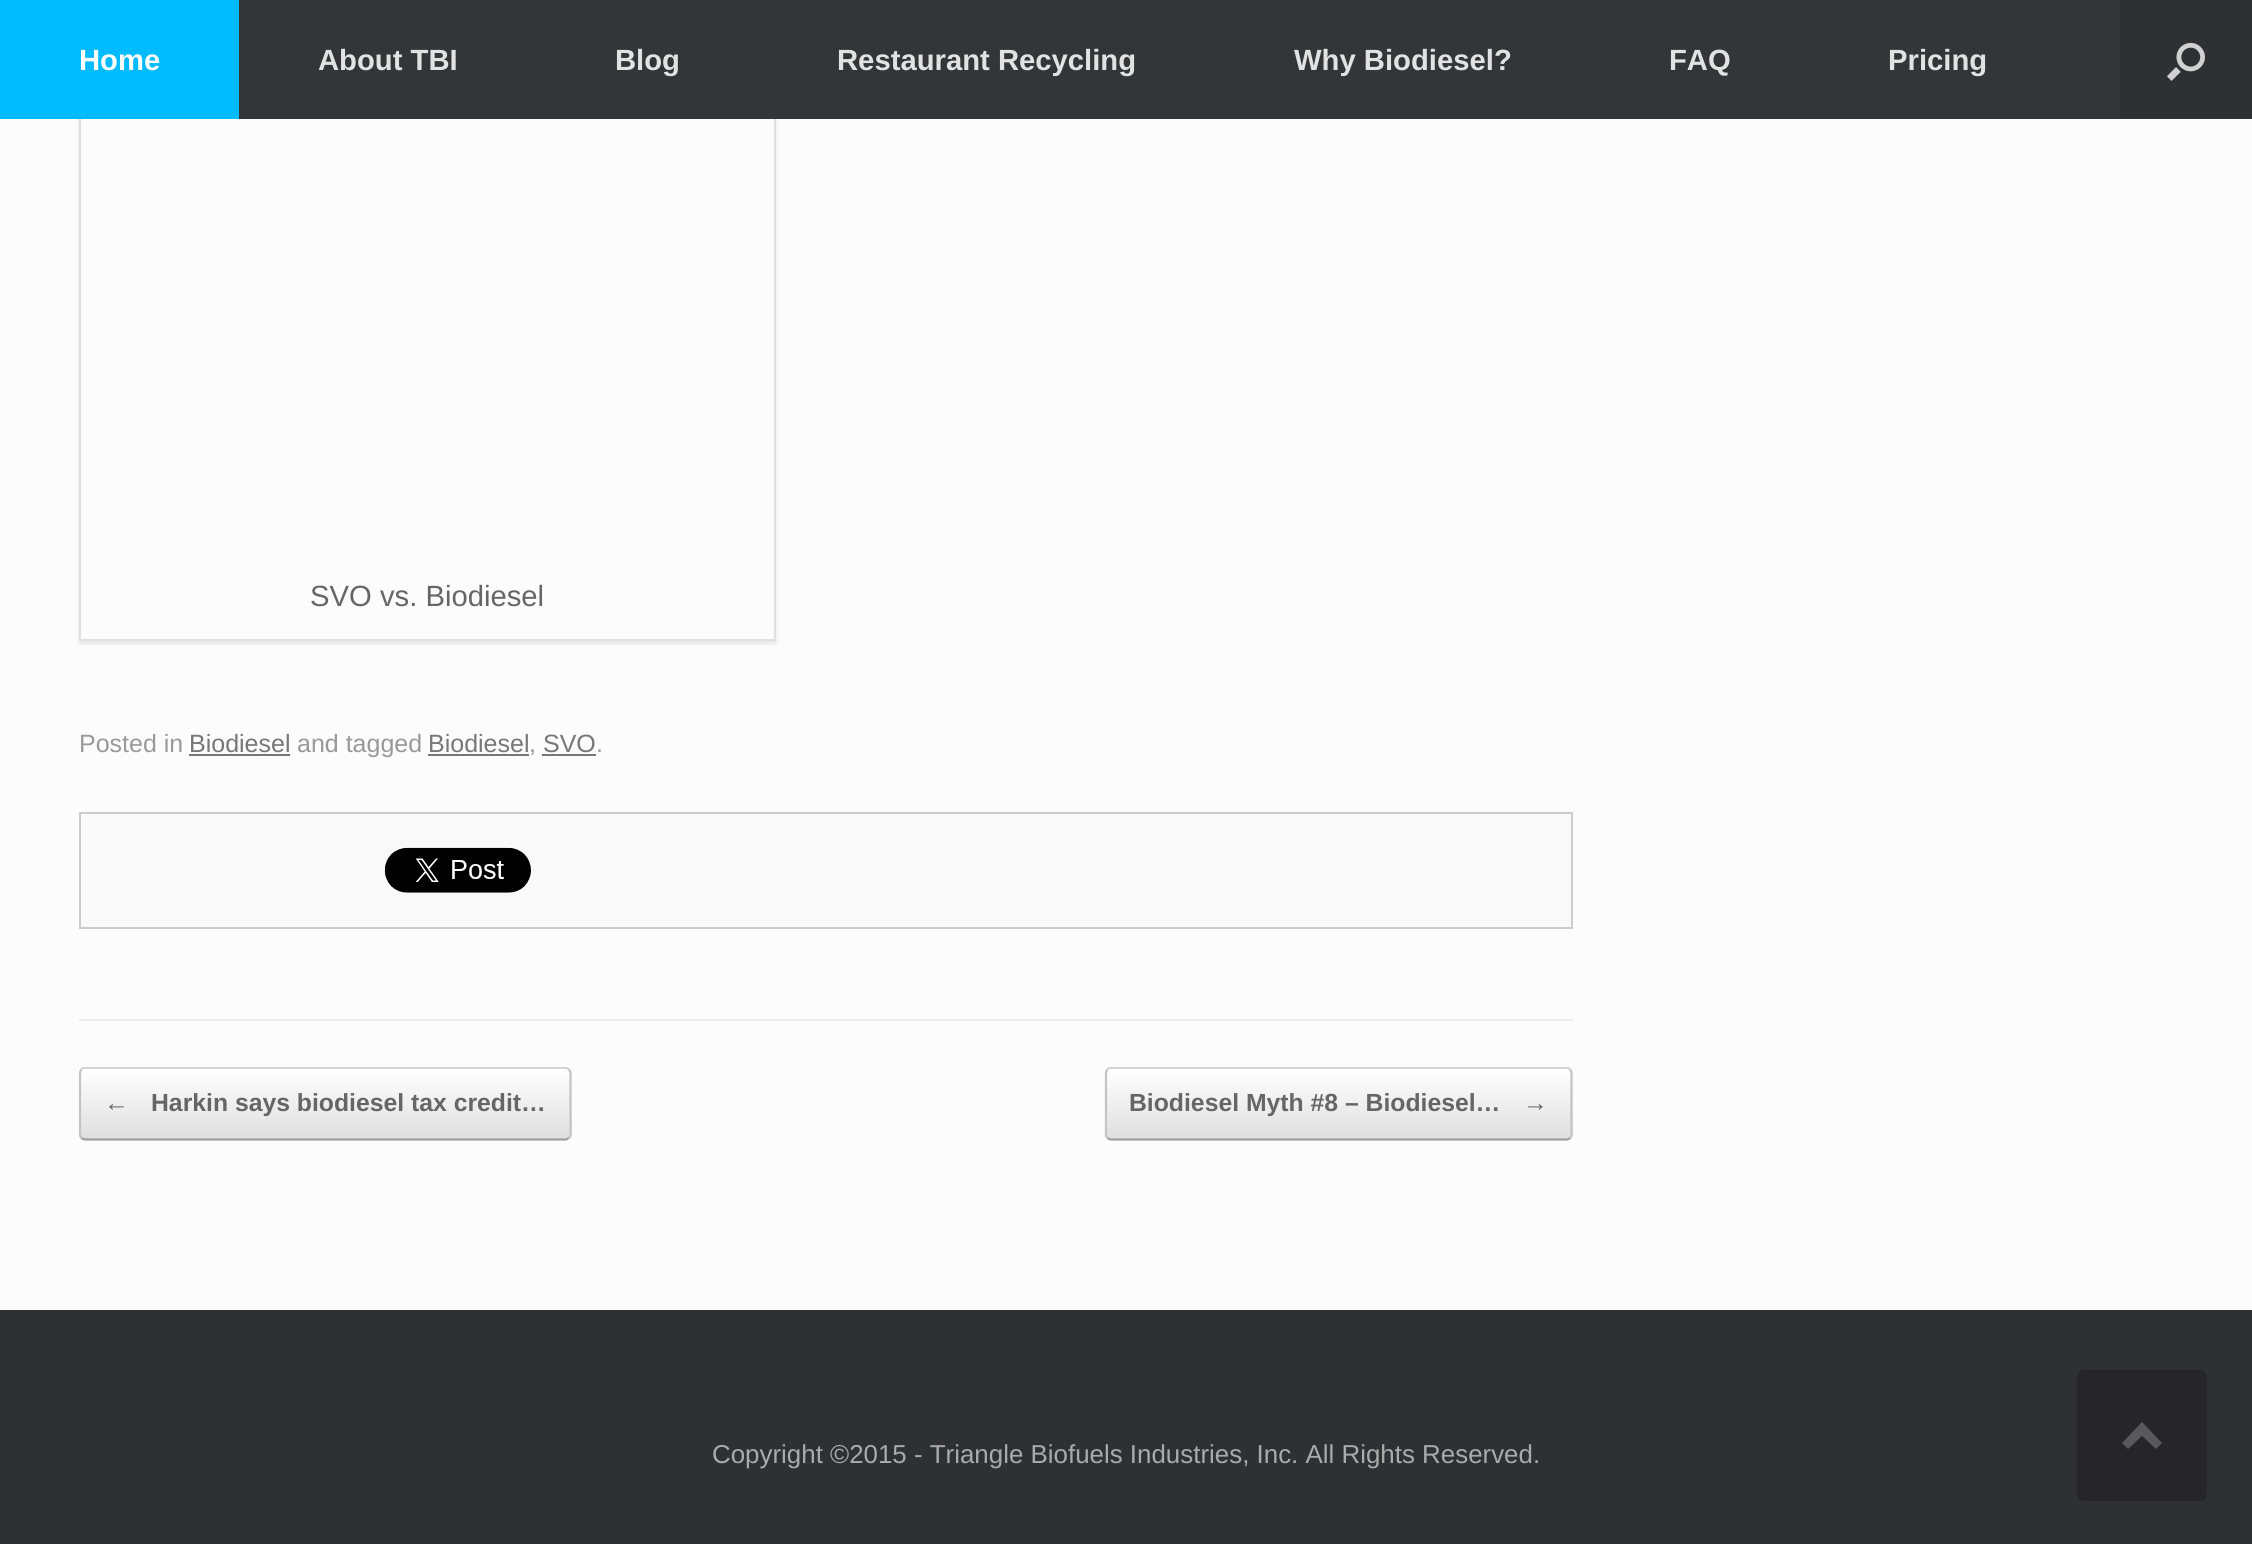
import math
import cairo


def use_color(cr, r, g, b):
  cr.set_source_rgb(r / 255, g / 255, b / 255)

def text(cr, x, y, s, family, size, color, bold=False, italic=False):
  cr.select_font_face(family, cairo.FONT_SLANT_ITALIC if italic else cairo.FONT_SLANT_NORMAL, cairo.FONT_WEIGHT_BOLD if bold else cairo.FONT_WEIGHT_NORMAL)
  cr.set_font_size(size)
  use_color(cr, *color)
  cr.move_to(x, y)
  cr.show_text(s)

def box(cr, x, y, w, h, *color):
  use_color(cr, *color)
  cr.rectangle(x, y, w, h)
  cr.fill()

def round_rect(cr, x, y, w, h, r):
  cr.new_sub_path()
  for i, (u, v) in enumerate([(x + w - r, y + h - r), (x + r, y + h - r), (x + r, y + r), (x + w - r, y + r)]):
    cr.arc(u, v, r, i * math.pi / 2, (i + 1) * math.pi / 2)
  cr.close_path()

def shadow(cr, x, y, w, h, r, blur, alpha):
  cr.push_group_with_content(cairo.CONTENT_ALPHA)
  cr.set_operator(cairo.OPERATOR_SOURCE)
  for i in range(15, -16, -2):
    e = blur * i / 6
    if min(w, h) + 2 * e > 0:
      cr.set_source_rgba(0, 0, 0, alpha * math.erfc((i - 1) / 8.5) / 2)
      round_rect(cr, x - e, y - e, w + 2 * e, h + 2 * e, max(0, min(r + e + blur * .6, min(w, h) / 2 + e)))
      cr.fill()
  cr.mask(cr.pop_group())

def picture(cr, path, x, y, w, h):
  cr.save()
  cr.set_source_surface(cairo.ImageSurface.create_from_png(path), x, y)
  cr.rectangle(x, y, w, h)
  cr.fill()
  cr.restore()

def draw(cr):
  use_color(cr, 47, 48, 51)
  cr.paint()
  box(cr, 0, 119, 2252, 1191, 252, 252, 252)
  cr.save()
  cr.set_fill_rule(cairo.FILL_RULE_EVEN_ODD)
  cr.new_path()
  cr.move_to(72, 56)
  cr.line_to(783, 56)
  cr.line_to(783, 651)
  cr.line_to(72, 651)
  cr.close_path()
  cr.move_to(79, 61)
  cr.line_to(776, 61)
  cr.line_to(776, 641)
  cr.line_to(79, 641)
  cr.close_path()
  cr.clip()
  use_color(cr, 0, 0, 0)
  shadow(cr, 79, 63, 697, 581, 0, 2, 0.09)
  cr.restore()
  cr.rectangle(80, 62, 695, 578)
  use_color(cr, 224, 224, 224)
  cr.stroke()
  box(cr, 239, 0, 1881, 119, 52, 53, 56)
  box(cr, 0, 0, 239, 119, 0, 188, 255)
  picture(cr, "img_01.png", 2167, 42, 38, 39)
  box(cr, 79, 1019, 1494, 2, 238, 238, 238)
  box(cr, 189, 754, 101, 2, 119, 119, 119)
  box(cr, 428, 754, 101, 2, 119, 119, 119)
  box(cr, 542, 754, 54, 2, 119, 119, 119)
  use_color(cr, 249, 249, 249)
  cr.rectangle(80, 813, 1492, 115)
  cr.fill_preserve()
  use_color(cr, 204, 204, 204)
  cr.stroke()
  picture(cr, "img_02.png", 384, 847, 147, 46)
  cr.save()
  round_rect(cr, 79, 1067, 493, 74, 7)
  cr.clip()
  gradient = cairo.LinearGradient(81, 1069, 81, 999)
  gradient.add_color_stop_rgba(0, 0.875, 0.875, 0.875, 1)
  gradient.add_color_stop_rgba(1, 1, 1, 1, 1)
  cr.set_source(gradient)
  cr.rectangle(79, 1067, 493, 2)
  cr.fill()
  gradient = cairo.LinearGradient(81, 1139, 81, 1069)
  gradient.add_color_stop_rgba(0, 0.875, 0.875, 0.875, 1)
  gradient.add_color_stop_rgba(1, 1, 1, 1, 1)
  cr.set_source(gradient)
  cr.rectangle(79, 1069, 493, 70)
  cr.fill()
  gradient = cairo.LinearGradient(81, 1208, 81, 1139)
  gradient.add_color_stop_rgba(0, 0.875, 0.875, 0.875, 1)
  gradient.add_color_stop_rgba(1, 1, 1, 1, 1)
  cr.set_source(gradient)
  cr.rectangle(79, 1139, 493, 2)
  cr.fill()
  cr.restore()
  cr.save()
  cr.rectangle(79, 1067, 1494, 74)
  cr.clip()
  cr.new_path()
  cr.move_to(81.5, 1069.5)
  cr.curve_to(82.5, 1068, 84, 1067.5, 85.5, 1067.5)
  cr.line_to(565, 1067.5)
  cr.curve_to(566, 1067.5, 567.5, 1068, 568.5, 1069.5)
  use_color(cr, 210, 210, 210)
  cr.set_line_width(2.2)
  cr.stroke()
  cr.restore()
  cr.new_path()
  cr.move_to(568.5, 1069.5)
  cr.curve_to(570, 1070.5, 570.5, 1072, 570.5, 1073)
  cr.line_to(570.5, 1134)
  cr.curve_to(570.5, 1135.5, 570, 1137, 568.5, 1138)
  use_color(cr, 195, 195, 195)
  cr.set_line_width(2.2)
  cr.stroke()
  cr.new_path()
  cr.move_to(568.5, 1138)
  cr.curve_to(567.5, 1139, 566, 1139.5, 565, 1139.5)
  cr.line_to(85.5, 1139.5)
  cr.curve_to(84, 1139.5, 82.5, 1139, 81.5, 1138)
  use_color(cr, 159, 159, 159)
  cr.stroke()
  cr.save()
  cr.rectangle(79, 1067, 1494, 74)
  cr.clip()
  cr.new_path()
  cr.move_to(81.5, 1138)
  cr.curve_to(80.5, 1137, 80, 1135.5, 80, 1134)
  cr.line_to(80, 1073)
  cr.curve_to(80, 1072, 80.5, 1070.5, 81.5, 1069.5)
  use_color(cr, 195, 195, 195)
  cr.stroke()
  cr.restore()
  cr.save()
  round_rect(cr, 1105, 1067, 468, 74, 7)
  cr.clip()
  gradient = cairo.LinearGradient(1107, 1069, 1107, 999)
  gradient.add_color_stop_rgba(0, 0.875, 0.875, 0.875, 1)
  gradient.add_color_stop_rgba(1, 1, 1, 1, 1)
  cr.set_source(gradient)
  cr.rectangle(1105, 1067, 468, 2)
  cr.fill()
  gradient = cairo.LinearGradient(1107, 1139, 1107, 1069)
  gradient.add_color_stop_rgba(0, 0.875, 0.875, 0.875, 1)
  gradient.add_color_stop_rgba(1, 1, 1, 1, 1)
  cr.set_source(gradient)
  cr.rectangle(1105, 1069, 468, 70)
  cr.fill()
  gradient = cairo.LinearGradient(1107, 1208, 1107, 1139)
  gradient.add_color_stop_rgba(0, 0.875, 0.875, 0.875, 1)
  gradient.add_color_stop_rgba(1, 1, 1, 1, 1)
  cr.set_source(gradient)
  cr.rectangle(1105, 1139, 468, 2)
  cr.fill()
  cr.restore()
  cr.save()
  cr.rectangle(79, 1067, 1494, 74)
  cr.clip()
  cr.new_path()
  cr.move_to(1107.5, 1069.5)
  cr.curve_to(1108.5, 1068, 1110, 1067.5, 1111.5, 1067.5)
  cr.line_to(1566, 1067.5)
  cr.curve_to(1567.5, 1067.5, 1569, 1068, 1570, 1069.5)
  use_color(cr, 210, 210, 210)
  cr.stroke()
  cr.restore()
  cr.new_path()
  cr.move_to(1570, 1069.5)
  cr.curve_to(1571, 1070.5, 1571.5, 1072, 1571.5, 1073)
  cr.line_to(1571.5, 1134)
  cr.curve_to(1571.5, 1135.5, 1571, 1137, 1570, 1138)
  use_color(cr, 195, 195, 195)
  cr.stroke()
  cr.new_path()
  cr.move_to(1570, 1138)
  cr.curve_to(1569, 1139, 1567.5, 1139.5, 1566, 1139.5)
  cr.line_to(1111.5, 1139.5)
  cr.curve_to(1110, 1139.5, 1108.5, 1139, 1107.5, 1138)
  use_color(cr, 159, 159, 159)
  cr.stroke()
  cr.new_path()
  cr.move_to(1107.5, 1138)
  cr.curve_to(1106.5, 1137, 1106, 1135.5, 1106, 1134)
  cr.line_to(1106, 1073)
  cr.curve_to(1106, 1072, 1106.5, 1070.5, 1107.5, 1069.5)
  use_color(cr, 195, 195, 195)
  cr.stroke()
  use_color(cr, 38, 38, 41)
  round_rect(cr, 2077, 1370, 130, 131, 7)
  cr.fill()
  use_color(cr, 89, 89, 92)
  cr.new_path()
  cr.move_to(2162, 1443)
  cr.line_to(2142, 1422)
  cr.line_to(2122, 1443)
  cr.line_to(2128, 1449)
  cr.line_to(2142, 1436)
  cr.line_to(2156, 1449)
  cr.close_path()
  cr.fill()
  text(cr, 79, 70, "Home", "Liberation Sans", 29.25, (255, 255, 255), bold=True)
  text(cr, 318, 70, "About TBI", "Liberation Sans", 29.25, (226, 226, 226), bold=True)
  text(cr, 615, 70, "Blog", "Liberation Sans", 29.25, (226, 226, 226), bold=True)
  text(cr, 837, 70, "Restaurant Recycling", "Liberation Sans", 29.25, (226, 226, 226), bold=True)
  text(cr, 1294, 70, "Why Biodiesel?", "Liberation Sans", 29.25, (226, 226, 226), bold=True)
  text(cr, 1669, 70, "FAQ", "Liberation Sans", 29.25, (226, 226, 226), bold=True)
  text(cr, 1888, 70, "Pricing", "Liberation Sans", 29.25, (226, 226, 226), bold=True)
  text(cr, 310, 606, "SVO vs. Biodiesel", "Liberation Sans", 29.25, (102, 102, 102))
  text(cr, 79, 752, "Posted in", "Liberation Sans", 25, (153, 153, 153))
  text(cr, 189, 752, "Biodiesel", "Liberation Sans", 25, (119, 119, 119))
  text(cr, 297, 752, "and tagged", "Liberation Sans", 25, (153, 153, 153))
  text(cr, 428, 752, "Biodiesel", "Liberation Sans", 25, (119, 119, 119))
  text(cr, 529, 752, ",", "Liberation Sans", 25, (153, 153, 153))
  text(cr, 543, 752, "SVO", "Liberation Sans", 25, (119, 119, 119))
  text(cr, 596, 752, ".", "Liberation Sans", 25, (153, 153, 153))
  text(cr, 104, 1111, "←", "Liberation Sans", 24.75, (102, 102, 102), bold=True)
  text(cr, 151, 1111, "Harkin says biodiesel tax credit…", "Liberation Sans", 24.75, (102, 102, 102), bold=True)
  text(cr, 1129, 1111, "Biodiesel Myth #8 – Biodiesel…", "Liberation Sans", 24.75, (102, 102, 102), bold=True)
  text(cr, 1523, 1111, "→", "Liberation Sans", 24.75, (102, 102, 102), bold=True)
  text(cr, 712, 1463, "Copyright ©2015 - Triangle Biofuels Industries, Inc. All Rights Reserved.", "Liberation Sans", 25.9, (170, 170, 170))


surface = cairo.ImageSurface(cairo.FORMAT_RGB24, 2252, 1544)
cr = cairo.Context(surface)
options = cairo.FontOptions()
options.set_hint_metrics(cairo.HINT_METRICS_OFF)
options.set_hint_style(cairo.HINT_STYLE_NONE)
cr.set_font_options(options)
cr.set_miter_limit(4)
draw(cr)
surface.write_to_png("out.png")
